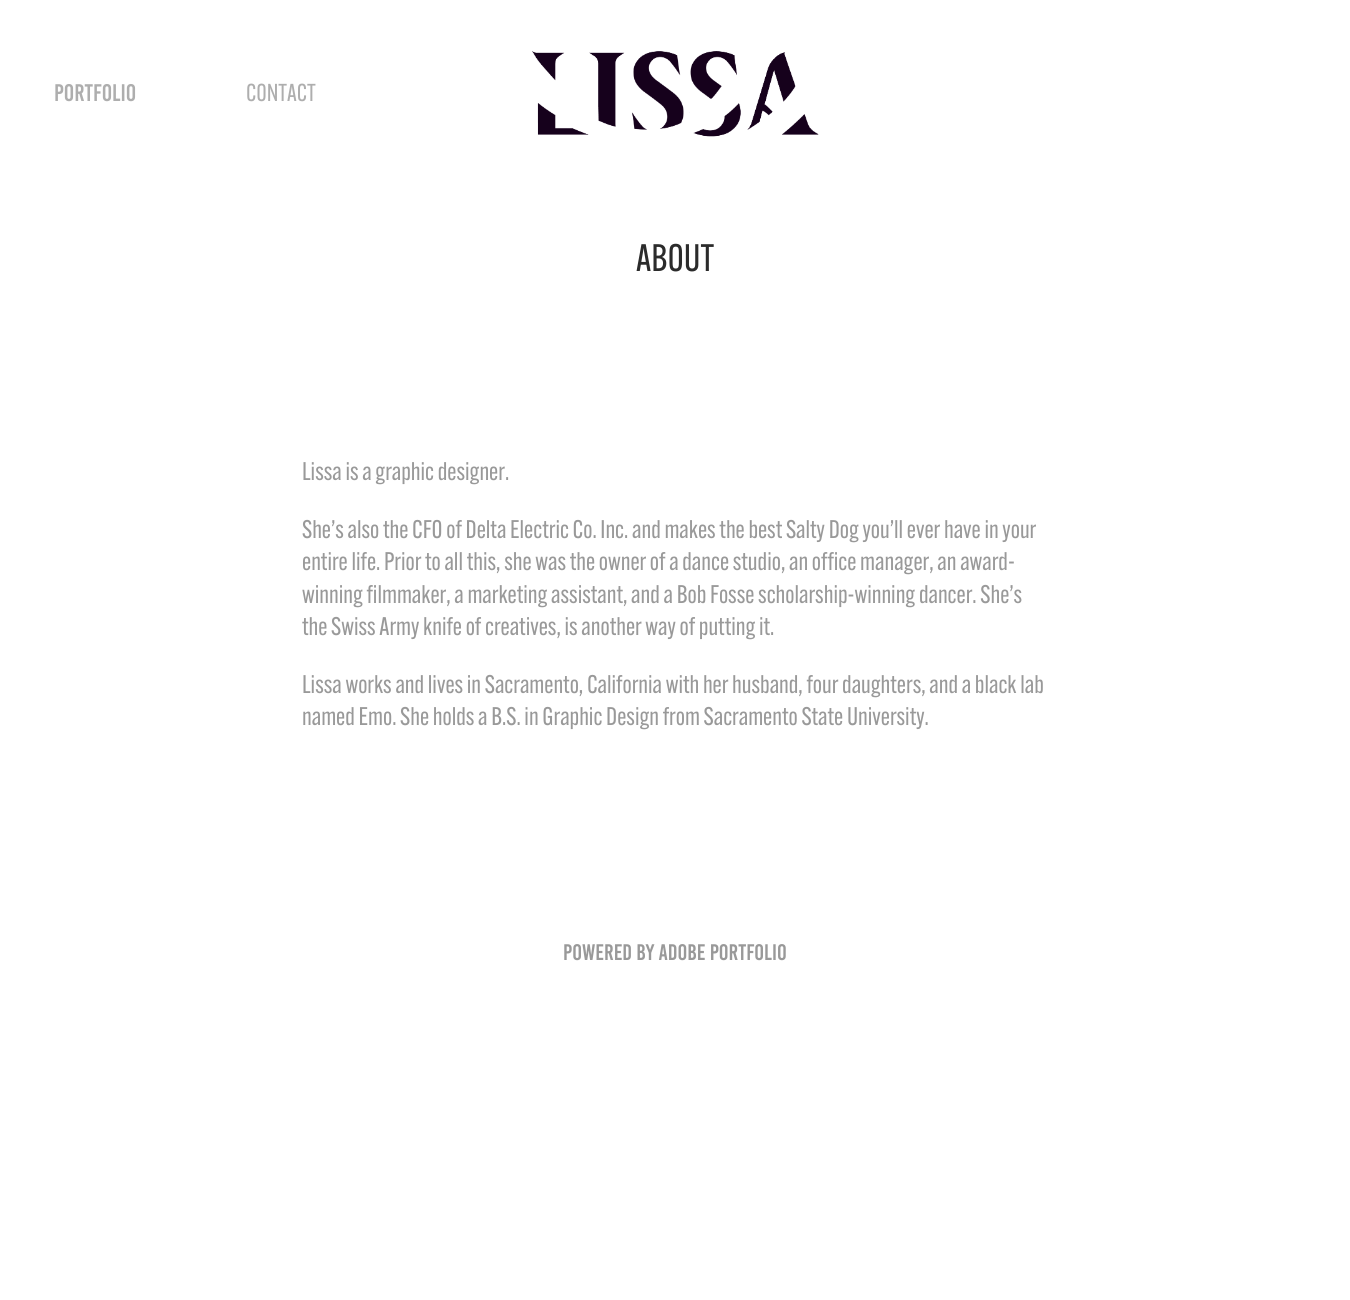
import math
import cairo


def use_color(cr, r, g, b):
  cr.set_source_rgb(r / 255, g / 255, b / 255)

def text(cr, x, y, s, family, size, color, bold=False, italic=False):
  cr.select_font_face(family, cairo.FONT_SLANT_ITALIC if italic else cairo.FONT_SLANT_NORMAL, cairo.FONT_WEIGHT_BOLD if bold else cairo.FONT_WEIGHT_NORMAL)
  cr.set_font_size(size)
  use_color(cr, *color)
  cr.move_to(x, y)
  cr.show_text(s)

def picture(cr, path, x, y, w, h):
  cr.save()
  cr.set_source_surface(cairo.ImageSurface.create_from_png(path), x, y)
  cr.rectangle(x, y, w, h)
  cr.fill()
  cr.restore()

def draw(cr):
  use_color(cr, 255, 255, 255)
  cr.paint()
  picture(cr, "img_01.png", 532, 51, 287, 86)
  text(cr, 54, 101, "PORTFOLIO", "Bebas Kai", 24, (174, 174, 174))
  text(cr, 246, 101, "CONTACT", "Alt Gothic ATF", 24, (174, 174, 174))
  text(cr, 636, 271, "ABOUT", "Alt Gothic ATF", 37.5, (43, 43, 43))
  text(cr, 302, 480, "Lissa is a graphic designer.", "Alt Gothic ATF", 25, (153, 153, 153))
  text(cr, 302, 538, "She’s also the CFO of Delta Electric Co. Inc. and makes the best Salty Dog you’ll ever have in your", "Alt Gothic ATF", 25, (153, 153, 153))
  text(cr, 302, 570, "entire life. Prior to all this, she was the owner of a dance studio, an office manager, an award-", "Alt Gothic ATF", 25, (153, 153, 153))
  text(cr, 302, 603, "winning filmmaker, a marketing assistant, and a Bob Fosse scholarship-winning dancer. She’s", "Alt Gothic ATF", 25, (153, 153, 153))
  text(cr, 302, 635, "the Swiss Army knife of creatives, is another way of putting it.", "Alt Gothic ATF", 25, (153, 153, 153))
  text(cr, 302, 693, "Lissa works and lives in Sacramento, California with her husband, four daughters, and a black lab", "Alt Gothic ATF", 25, (153, 153, 153))
  text(cr, 302, 725, "named Emo. She holds a B.S. in Graphic Design from Sacramento State University.", "Alt Gothic ATF", 25, (153, 153, 153))
  text(cr, 563, 960, "Powered by Adobe Portfolio", "Bebas Kai", 22.5, (153, 153, 153))


surface = cairo.ImageSurface(cairo.FORMAT_RGB24, 1350, 1300)
cr = cairo.Context(surface)
options = cairo.FontOptions()
options.set_hint_metrics(cairo.HINT_METRICS_OFF)
options.set_hint_style(cairo.HINT_STYLE_NONE)
cr.set_font_options(options)
cr.set_miter_limit(4)
draw(cr)
surface.write_to_png("out.png")
